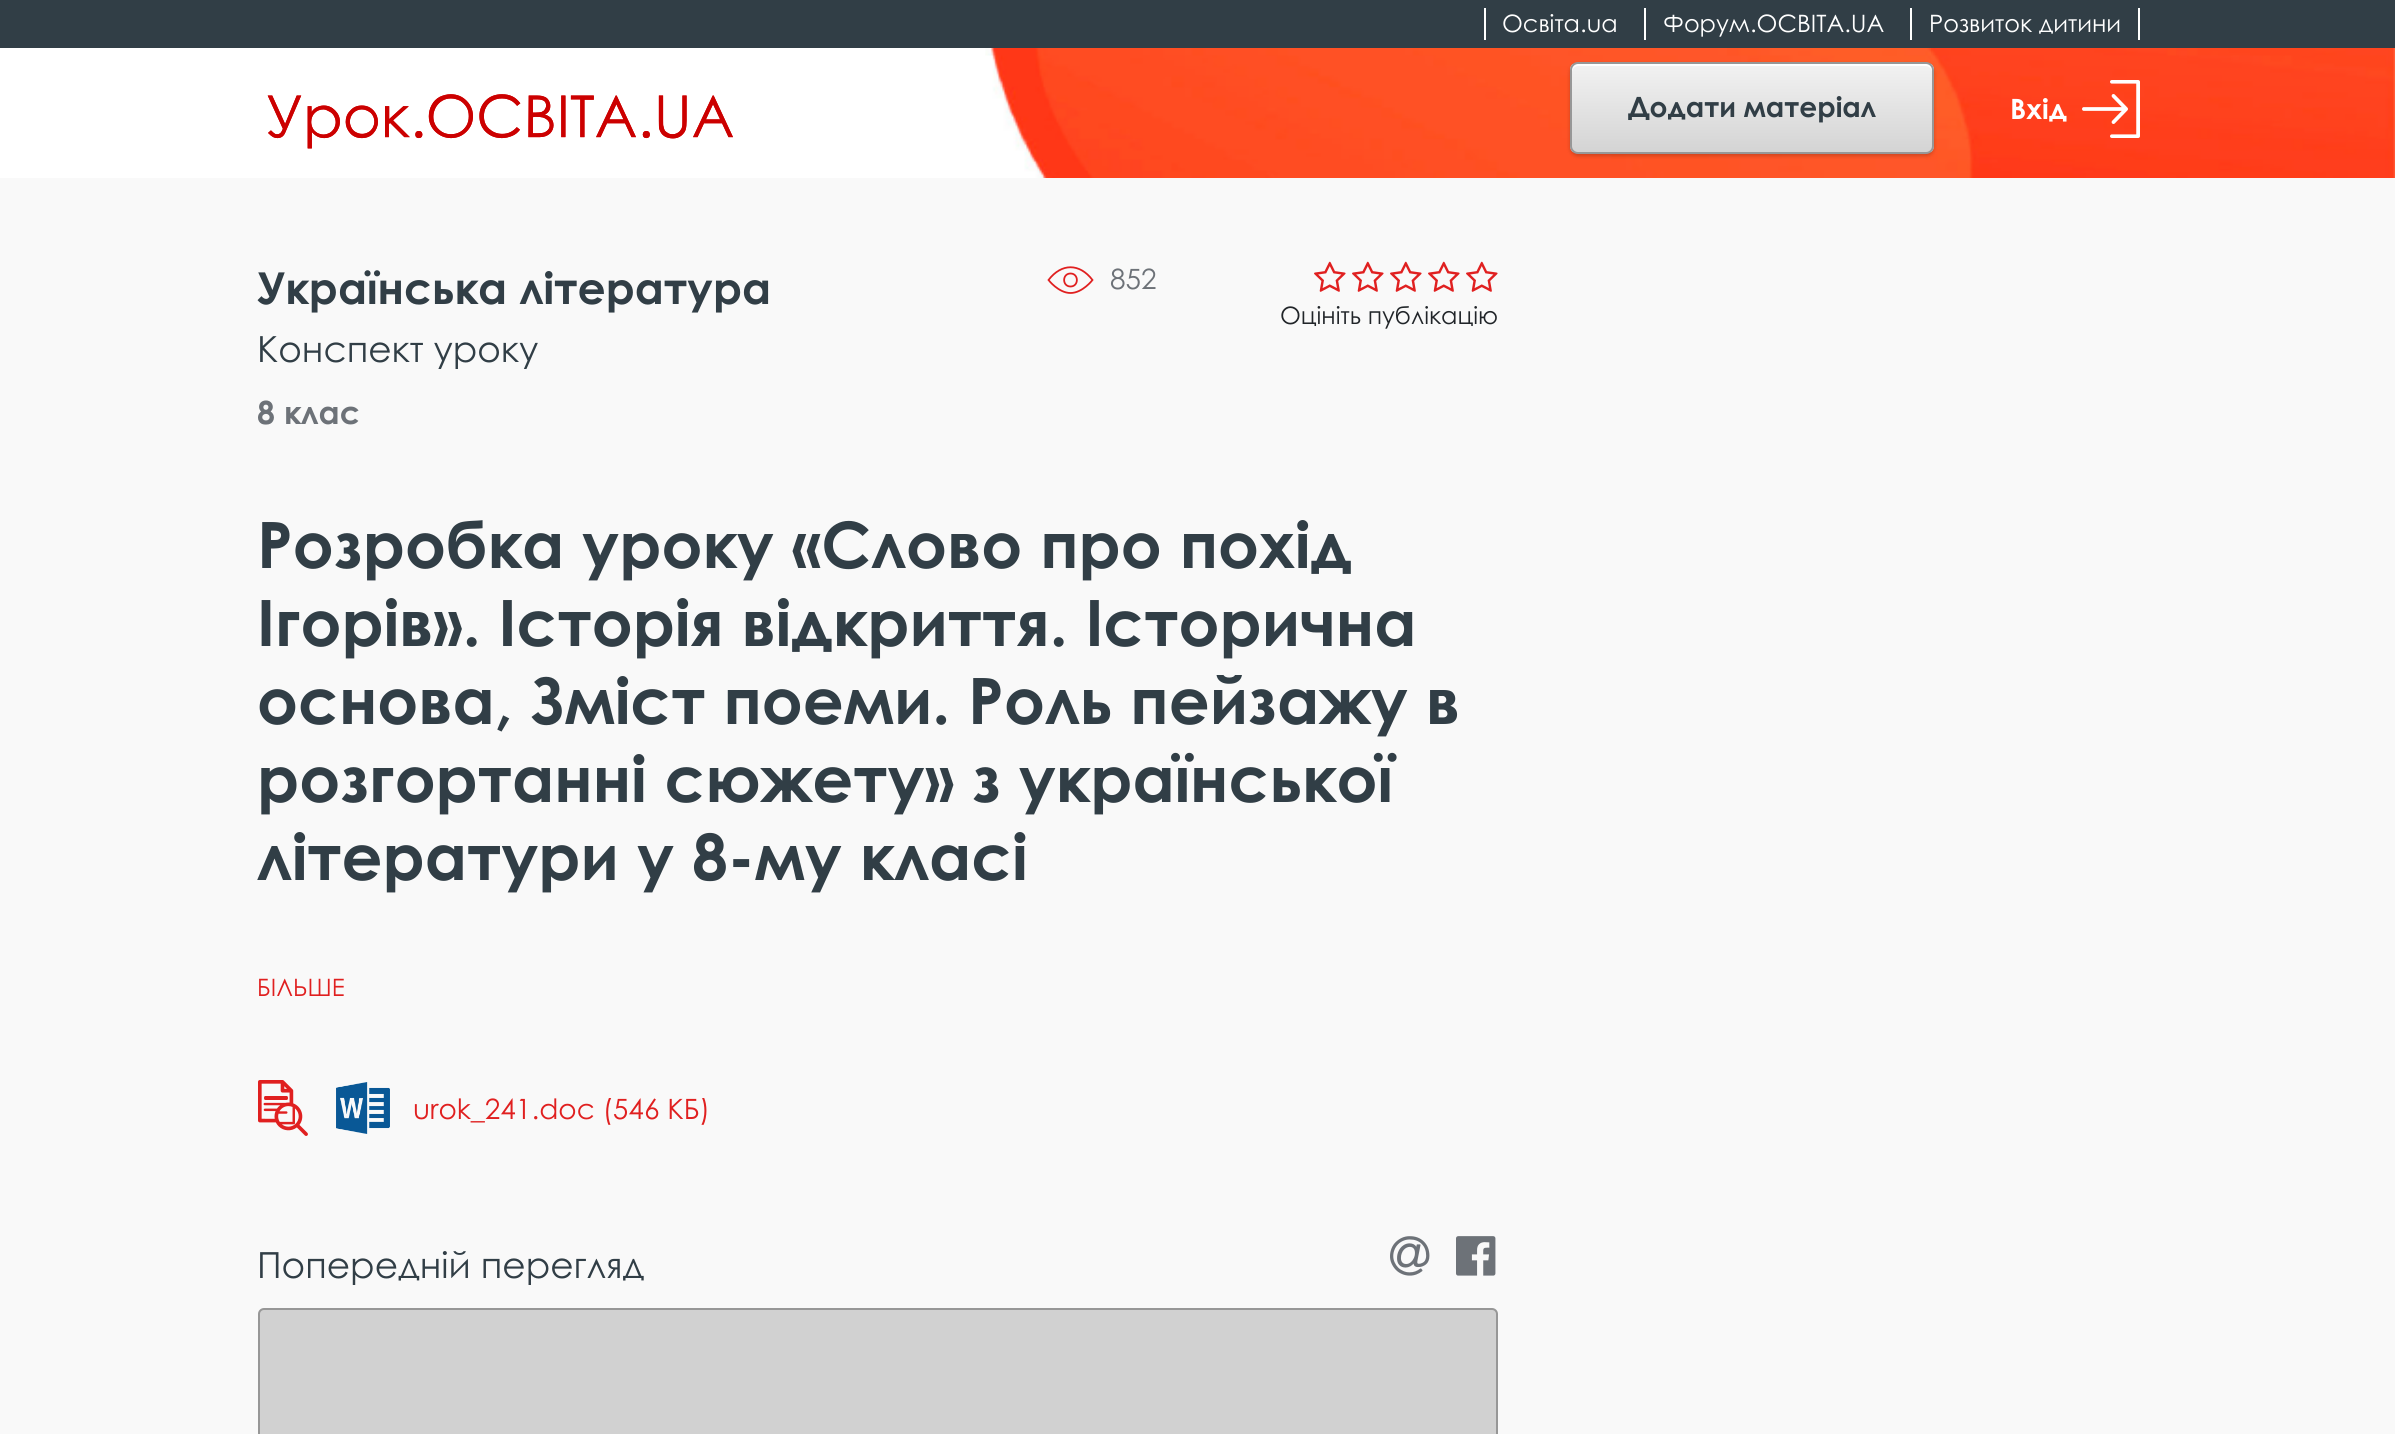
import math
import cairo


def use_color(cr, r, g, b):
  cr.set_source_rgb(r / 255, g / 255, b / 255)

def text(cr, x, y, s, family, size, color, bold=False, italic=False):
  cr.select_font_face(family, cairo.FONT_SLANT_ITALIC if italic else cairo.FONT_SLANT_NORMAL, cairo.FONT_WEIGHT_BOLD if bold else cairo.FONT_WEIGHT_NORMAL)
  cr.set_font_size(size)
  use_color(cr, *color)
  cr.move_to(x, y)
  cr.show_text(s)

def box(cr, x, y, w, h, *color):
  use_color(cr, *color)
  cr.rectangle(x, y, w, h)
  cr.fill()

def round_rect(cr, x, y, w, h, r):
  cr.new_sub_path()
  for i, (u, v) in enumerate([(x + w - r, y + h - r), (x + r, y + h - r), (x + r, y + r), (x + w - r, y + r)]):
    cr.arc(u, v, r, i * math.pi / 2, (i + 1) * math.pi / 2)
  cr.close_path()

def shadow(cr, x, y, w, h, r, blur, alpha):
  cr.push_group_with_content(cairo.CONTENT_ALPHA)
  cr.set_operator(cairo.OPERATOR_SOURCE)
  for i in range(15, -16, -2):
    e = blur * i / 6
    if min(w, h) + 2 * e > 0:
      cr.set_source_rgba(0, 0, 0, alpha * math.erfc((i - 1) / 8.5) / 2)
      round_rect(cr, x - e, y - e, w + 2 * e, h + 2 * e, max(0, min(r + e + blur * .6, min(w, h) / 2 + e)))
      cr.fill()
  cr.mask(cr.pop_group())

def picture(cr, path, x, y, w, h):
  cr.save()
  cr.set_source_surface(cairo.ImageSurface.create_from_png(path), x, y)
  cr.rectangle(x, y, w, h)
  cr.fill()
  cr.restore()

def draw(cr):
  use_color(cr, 249, 249, 249)
  cr.paint()
  box(cr, 0, 48, 985, 130, 255, 255, 255)
  box(cr, 0, 0, 2395, 48, 49, 62, 70)
  box(cr, 1484, 8, 2, 32, 255, 255, 255)
  box(cr, 1644, 8, 2, 32, 255, 255, 255)
  box(cr, 1910, 8, 2, 32, 255, 255, 255)
  box(cr, 2138, 8, 2, 32, 255, 255, 255)
  picture(cr, "img_01.png", 985, 48, 1410, 130)
  picture(cr, "img_02.png", 267, 94, 466, 55)
  use_color(cr, 0, 0, 0)
  shadow(cr, 1570, 64, 364, 92, 8, 2, 0.2)
  cr.save()
  round_rect(cr, 1570, 62, 364, 92, 8)
  cr.clip()
  gradient = cairo.LinearGradient(1752, 64, 1752, 152)
  gradient.add_color_stop_rgba(0, 0.949, 0.949, 0.949, 1)
  gradient.add_color_stop_rgba(1, 0.831, 0.831, 0.831, 1)
  cr.set_source(gradient)
  cr.rectangle(1570, 64, 364, 88)
  cr.fill()
  cr.restore()
  use_color(cr, 255, 255, 255)
  cr.new_path()
  cr.move_to(1578, 66)
  cr.line_to(1926, 66)
  cr.curve_to(1929, 66, 1932, 69, 1932, 72)
  cr.line_to(1932, 70)
  cr.curve_to(1932, 67, 1929, 64, 1926, 64)
  cr.line_to(1578, 64)
  cr.curve_to(1575, 64, 1572, 67, 1572, 70)
  cr.line_to(1572, 72)
  cr.curve_to(1572, 69, 1575, 66, 1578, 66)
  cr.close_path()
  cr.fill()
  round_rect(cr, 1571, 63, 362, 90, 7)
  use_color(cr, 151, 151, 151)
  cr.stroke()
  picture(cr, "img_03.png", 2082, 80, 58, 58)
  cr.new_path()
  cr.move_to(1070.5, 286.5)
  cr.curve_to(1079, 286.5, 1079, 273.5, 1070.5, 273.5)
  cr.curve_to(1062, 273.5, 1062, 286.5, 1070.5, 286.5)
  cr.close_path()
  cr.move_to(1070.5, 293)
  cr.curve_to(1082.5, 293, 1092.5, 280, 1092.5, 280)
  cr.curve_to(1079.5, 263, 1061.5, 263, 1048.5, 280)
  cr.curve_to(1048.5, 280, 1058.5, 293, 1070.5, 293)
  cr.close_path()
  use_color(cr, 224, 32, 32)
  cr.set_line_width(1.8)
  cr.stroke()
  picture(cr, "img_04.png", 1314, 261, 32, 31)
  picture(cr, "img_04.png", 1352, 261, 32, 31)
  picture(cr, "img_04.png", 1390, 261, 32, 31)
  picture(cr, "img_04.png", 1428, 261, 32, 31)
  picture(cr, "img_04.png", 1466, 261, 32, 31)
  picture(cr, "img_05.png", 258, 1080, 50, 56)
  picture(cr, "img_06.png", 336, 1082, 54, 52)
  picture(cr, "img_07.png", 1390, 1236, 40, 40)
  picture(cr, "img_08.png", 1456, 1236, 40, 40)
  use_color(cr, 209, 209, 209)
  round_rect(cr, 259, 1309, 1238, 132, 5)
  cr.fill_preserve()
  use_color(cr, 151, 151, 151)
  cr.set_line_width(2)
  cr.stroke()
  text(cr, 1502, 32, "Освіта.ua", "Century Gothic", 24, (255, 255, 255))
  text(cr, 1663, 32, "Форум.ОСВІТА.UA", "Century Gothic", 24, (255, 255, 255))
  text(cr, 1929, 32, "Розвиток дитини", "Century Gothic", 24, (255, 255, 255))
  text(cr, 1628, 117, "Додати матеріал", "Century Gothic", 28, (49, 62, 70), bold=True)
  text(cr, 2010, 119, "Вхід", "Century Gothic", 28, (255, 255, 255), bold=True)
  text(cr, 257, 304, "Українська література", "Century Gothic", 44, (49, 62, 70), bold=True)
  text(cr, 1110, 289, "852", "Century Gothic", 28, (109, 114, 120))
  text(cr, 1280, 324, "Оцініть публікацію", "Century Gothic", 24, (33, 37, 41))
  text(cr, 257, 362, "Конспект уроку", "Century Gothic", 36, (49, 62, 70))
  text(cr, 257, 424, "8 клас", "Century Gothic", 32, (109, 114, 120), bold=True)
  text(cr, 257, 568, "Розробка уроку «Слово про похід", "Century Gothic", 64, (49, 62, 70), bold=True)
  text(cr, 257, 646, "Ігорів». Історія відкриття. Історична", "Century Gothic", 64, (49, 62, 70), bold=True)
  text(cr, 257, 724, "основа, Зміст поеми. Роль пейзажу в", "Century Gothic", 64, (49, 62, 70), bold=True)
  text(cr, 257, 802, "розгортанні сюжету» з української", "Century Gothic", 64, (49, 62, 70), bold=True)
  text(cr, 257, 880, "літератури у 8-му класі", "Century Gothic", 64, (49, 62, 70), bold=True)
  text(cr, 257, 996, "БІЛЬШЕ", "Century Gothic", 24, (224, 32, 32))
  text(cr, 413, 1119, "urok_241.doc (546 КБ)", "Century Gothic", 28, (224, 32, 32))
  text(cr, 257, 1278, "Попередній перегляд", "Century Gothic", 36, (49, 62, 70))


surface = cairo.ImageSurface(cairo.FORMAT_RGB24, 2395, 1434)
cr = cairo.Context(surface)
options = cairo.FontOptions()
options.set_hint_metrics(cairo.HINT_METRICS_OFF)
options.set_hint_style(cairo.HINT_STYLE_NONE)
cr.set_font_options(options)
cr.set_miter_limit(4)
draw(cr)
surface.write_to_png("out.png")
